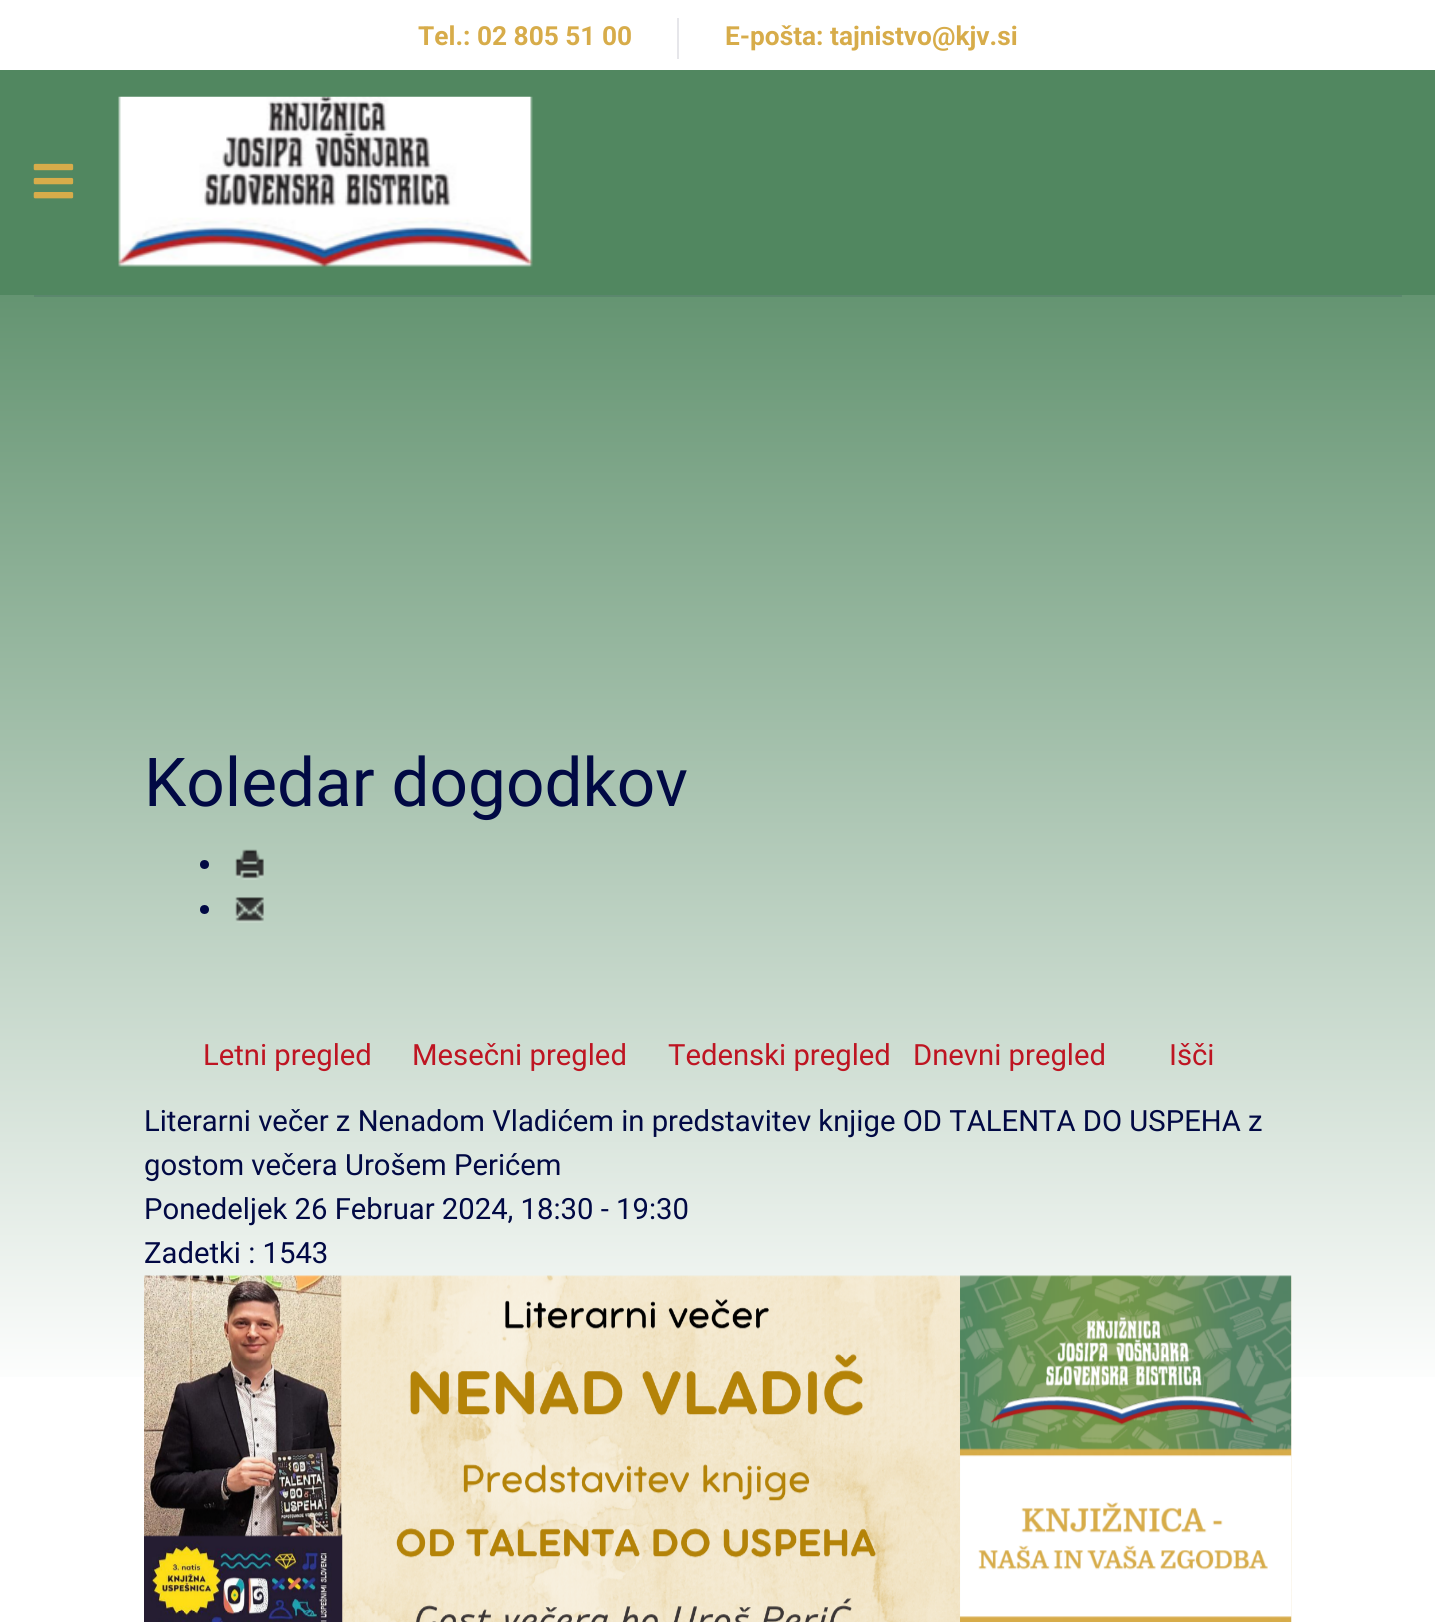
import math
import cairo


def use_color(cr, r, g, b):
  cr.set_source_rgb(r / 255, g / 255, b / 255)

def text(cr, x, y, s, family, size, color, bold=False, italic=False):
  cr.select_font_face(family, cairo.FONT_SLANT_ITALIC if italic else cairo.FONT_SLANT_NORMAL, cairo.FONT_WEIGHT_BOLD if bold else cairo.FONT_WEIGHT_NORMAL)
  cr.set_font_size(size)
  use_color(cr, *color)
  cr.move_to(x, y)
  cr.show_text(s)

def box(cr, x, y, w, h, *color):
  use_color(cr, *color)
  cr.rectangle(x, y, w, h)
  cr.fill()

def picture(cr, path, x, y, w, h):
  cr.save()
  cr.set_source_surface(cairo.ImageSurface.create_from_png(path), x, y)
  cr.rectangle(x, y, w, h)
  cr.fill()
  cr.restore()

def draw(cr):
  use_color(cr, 255, 255, 255)
  cr.paint()
  box(cr, 677, 18, 2, 41, 230, 230, 234)
  box(cr, 0, 70, 1435, 225, 81, 135, 96)
  gradient = cairo.LinearGradient(718, 157, 718, 1395)
  gradient.add_color_stop_rgba(0, 0.318, 0.529, 0.376, 1)
  gradient.add_color_stop_rgba(1, 1, 1, 1, 1)
  cr.set_source(gradient)
  cr.rectangle(0, 295, 1435, 1082)
  cr.fill()
  box(cr, 34, 295, 1368, 2, 91, 135, 109)
  picture(cr, "img_01.png", 33, 163, 41, 36)
  picture(cr, "img_02.png", 118, 96, 415, 171)
  use_color(cr, 1, 9, 68)
  cr.arc(204.5, 864.5, 4.5, 0, 2 * math.pi)
  cr.fill()
  picture(cr, "img_03.png", 235, 849, 29, 31)
  cr.arc(204.5, 909.5, 4.5, 0, 2 * math.pi)
  cr.fill()
  picture(cr, "img_04.png", 235, 897, 29, 26)
  picture(cr, "img_05.png", 144, 1275, 1148, 347)
  text(cr, 418, 45, "Tel.: 02 805 51 00", "Roboto", 26.25, (215, 172, 74), bold=True)
  text(cr, 725, 45, "E-pošta: tajnistvo@kjv.si", "Roboto", 26.25, (215, 172, 74), bold=True)
  text(cr, 144, 806, "Koledar dogodkov", "Roboto", 67.5, (1, 9, 68))
  text(cr, 203, 1065, "Letni pregled", "Roboto", 29.25, (190, 21, 34))
  text(cr, 412, 1065, "Mesečni pregled", "Roboto", 29.25, (190, 21, 34))
  text(cr, 668, 1065, "Tedenski pregled", "Roboto", 29.25, (190, 21, 34))
  text(cr, 913, 1065, "Dnevni pregled", "Roboto", 29.25, (190, 21, 34))
  text(cr, 1169, 1065, "Išči", "Roboto", 29.25, (190, 21, 34))
  text(cr, 144, 1131, "Literarni večer z Nenadom Vladićem in predstavitev knjige OD TALENTA DO USPEHA z", "Roboto", 29.25, (1, 9, 68))
  text(cr, 144, 1175, "gostom večera Urošem Perićem", "Roboto", 29.25, (1, 9, 68))
  text(cr, 144, 1219, "Ponedeljek 26 Februar 2024, 18:30 - 19:30", "Roboto", 29.25, (1, 9, 68))
  text(cr, 144, 1263, "Zadetki : 1543", "Roboto", 29.25, (1, 9, 68))


surface = cairo.ImageSurface(cairo.FORMAT_RGB24, 1435, 1622)
cr = cairo.Context(surface)
options = cairo.FontOptions()
options.set_hint_metrics(cairo.HINT_METRICS_OFF)
options.set_hint_style(cairo.HINT_STYLE_NONE)
cr.set_font_options(options)
cr.set_miter_limit(4)
draw(cr)
surface.write_to_png("out.png")
